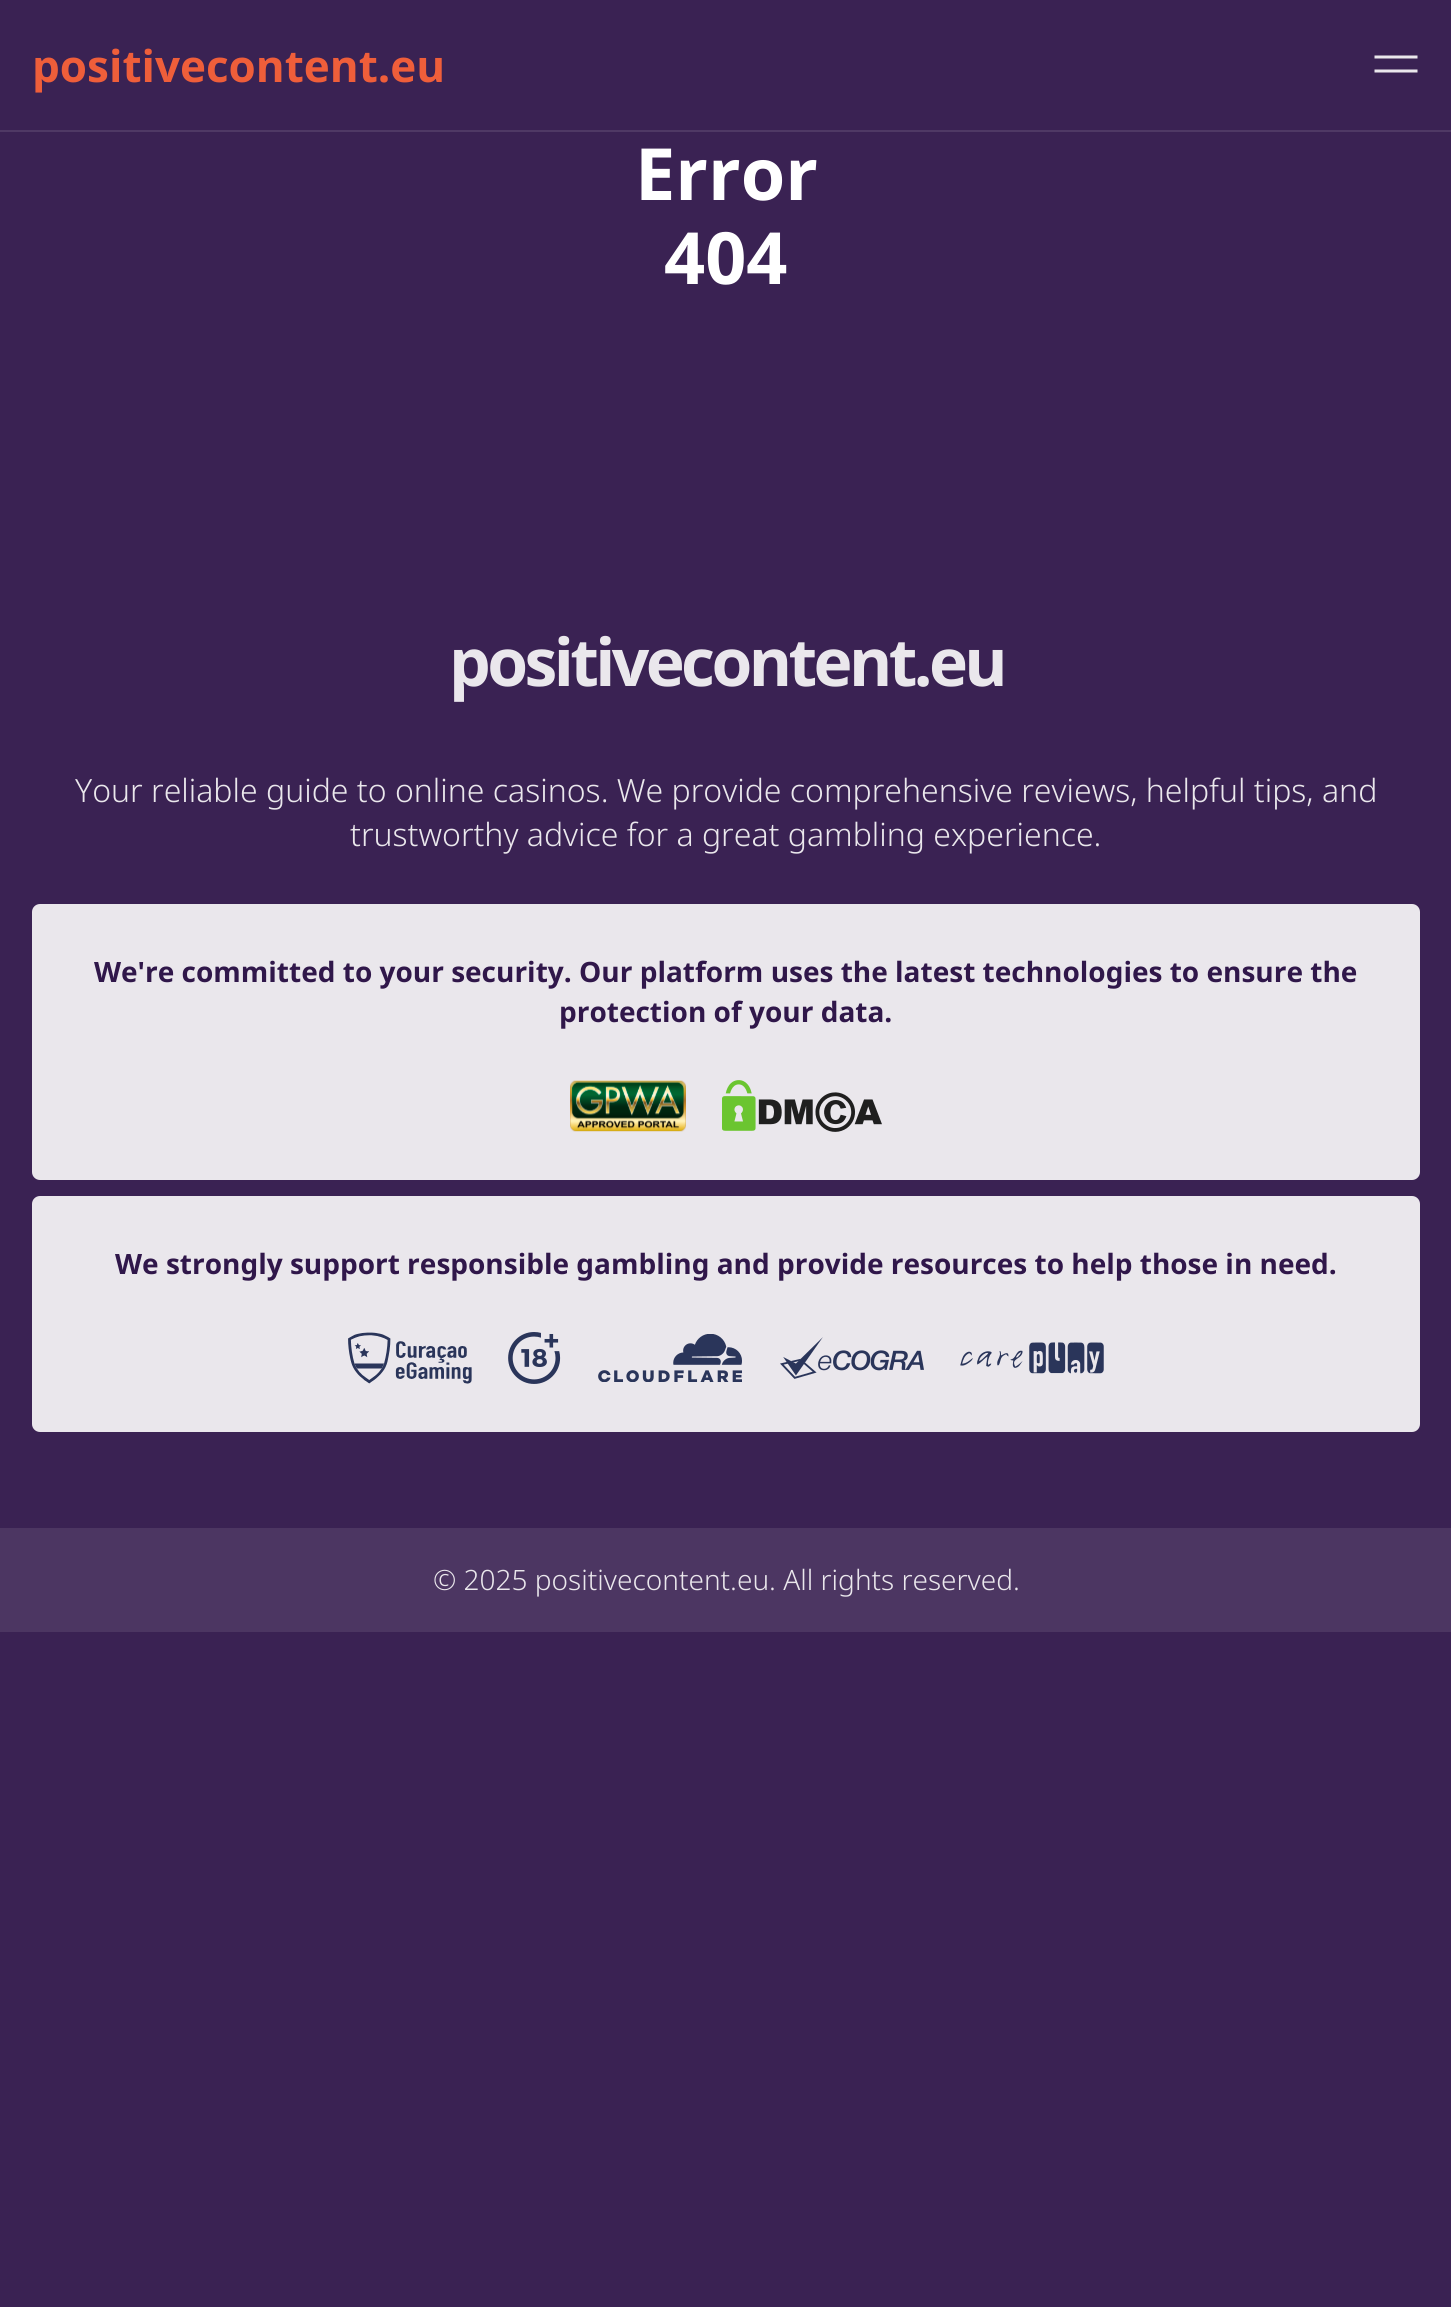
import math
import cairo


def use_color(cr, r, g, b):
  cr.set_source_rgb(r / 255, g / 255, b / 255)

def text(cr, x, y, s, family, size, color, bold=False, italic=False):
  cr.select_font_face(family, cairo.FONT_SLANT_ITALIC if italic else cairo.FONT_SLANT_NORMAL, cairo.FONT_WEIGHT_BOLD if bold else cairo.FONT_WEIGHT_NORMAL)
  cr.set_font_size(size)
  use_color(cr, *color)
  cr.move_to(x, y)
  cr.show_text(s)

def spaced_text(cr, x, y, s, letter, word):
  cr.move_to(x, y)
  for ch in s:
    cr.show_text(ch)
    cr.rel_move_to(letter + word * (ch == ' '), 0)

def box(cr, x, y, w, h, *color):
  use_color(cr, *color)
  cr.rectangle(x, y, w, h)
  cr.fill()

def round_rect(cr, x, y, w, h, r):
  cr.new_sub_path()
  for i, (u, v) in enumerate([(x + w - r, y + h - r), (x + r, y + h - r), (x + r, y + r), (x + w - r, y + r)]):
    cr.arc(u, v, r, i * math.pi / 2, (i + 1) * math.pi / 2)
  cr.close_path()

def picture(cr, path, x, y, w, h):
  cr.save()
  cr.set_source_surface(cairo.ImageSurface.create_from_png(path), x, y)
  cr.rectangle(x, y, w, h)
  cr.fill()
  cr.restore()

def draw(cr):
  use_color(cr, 58, 34, 83)
  cr.paint()
  box(cr, 0, 130, 1451, 2, 79, 57, 101)
  cr.new_path()
  cr.move_to(1376, 57)
  cr.line_to(1416, 57)
  cr.move_to(1376, 71)
  cr.line_to(1416, 71)
  use_color(cr, 234, 231, 236)
  cr.set_line_width(3)
  cr.set_line_cap(cairo.LINE_CAP_SQUARE)
  cr.stroke()
  round_rect(cr, 32, 904, 1388, 276, 8)
  cr.fill()
  picture(cr, "img_01.png", 570, 1080, 116, 52)
  picture(cr, "img_02.png", 722, 1080, 160, 52)
  round_rect(cr, 32, 1196, 1388, 236, 8)
  cr.fill()
  picture(cr, "img_03.png", 348, 1332, 124, 52)
  picture(cr, "img_04.png", 508, 1332, 53, 52)
  picture(cr, "img_05.png", 598, 1334, 144, 48)
  picture(cr, "img_06.png", 780, 1337, 144, 42)
  picture(cr, "img_07.png", 960, 1342, 144, 32)
  box(cr, 0, 1528, 1451, 104, 76, 54, 98)
  text(cr, 32, 82, "positivecontent.eu", "Noto Sans", 44, (239, 94, 58), bold=True)
  text(cr, 635, 200, "Error", "Noto Sans", 72, (255, 255, 255), bold=True)
  text(cr, 664, 284, "404", "Noto Sans", 72, (255, 255, 255), bold=True)
  cr.set_font_size(66)
  use_color(cr, 234, 231, 236)
  spaced_text(cr, 449, 686, "positivecontent.eu", -3.6, 0)
  text(cr, 75, 802, "Your reliable guide to online casinos. We provide comprehensive reviews, helpful tips, and", "Noto Sans Light", 32, (234, 231, 236))
  text(cr, 350, 846, "trustworthy advice for a great gambling experience.", "Noto Sans Light", 32, (234, 231, 236))
  text(cr, 94, 982, "We're committed to your security. Our platform uses the latest technologies to ensure the", "Noto Sans", 28, (48, 23, 74), bold=True)
  text(cr, 559, 1022, "protection of your data.", "Noto Sans", 28, (48, 23, 74), bold=True)
  text(cr, 115, 1274, "We strongly support responsible gambling and provide resources to help those in need.", "Noto Sans", 28, (48, 23, 74), bold=True)
  text(cr, 433, 1590, "© 2025 positivecontent.eu. All rights reserved.", "Noto Sans Light", 28, (234, 231, 236))


surface = cairo.ImageSurface(cairo.FORMAT_RGB24, 1451, 2307)
cr = cairo.Context(surface)
options = cairo.FontOptions()
options.set_hint_metrics(cairo.HINT_METRICS_OFF)
options.set_hint_style(cairo.HINT_STYLE_NONE)
cr.set_font_options(options)
cr.set_miter_limit(4)
draw(cr)
surface.write_to_png("out.png")
